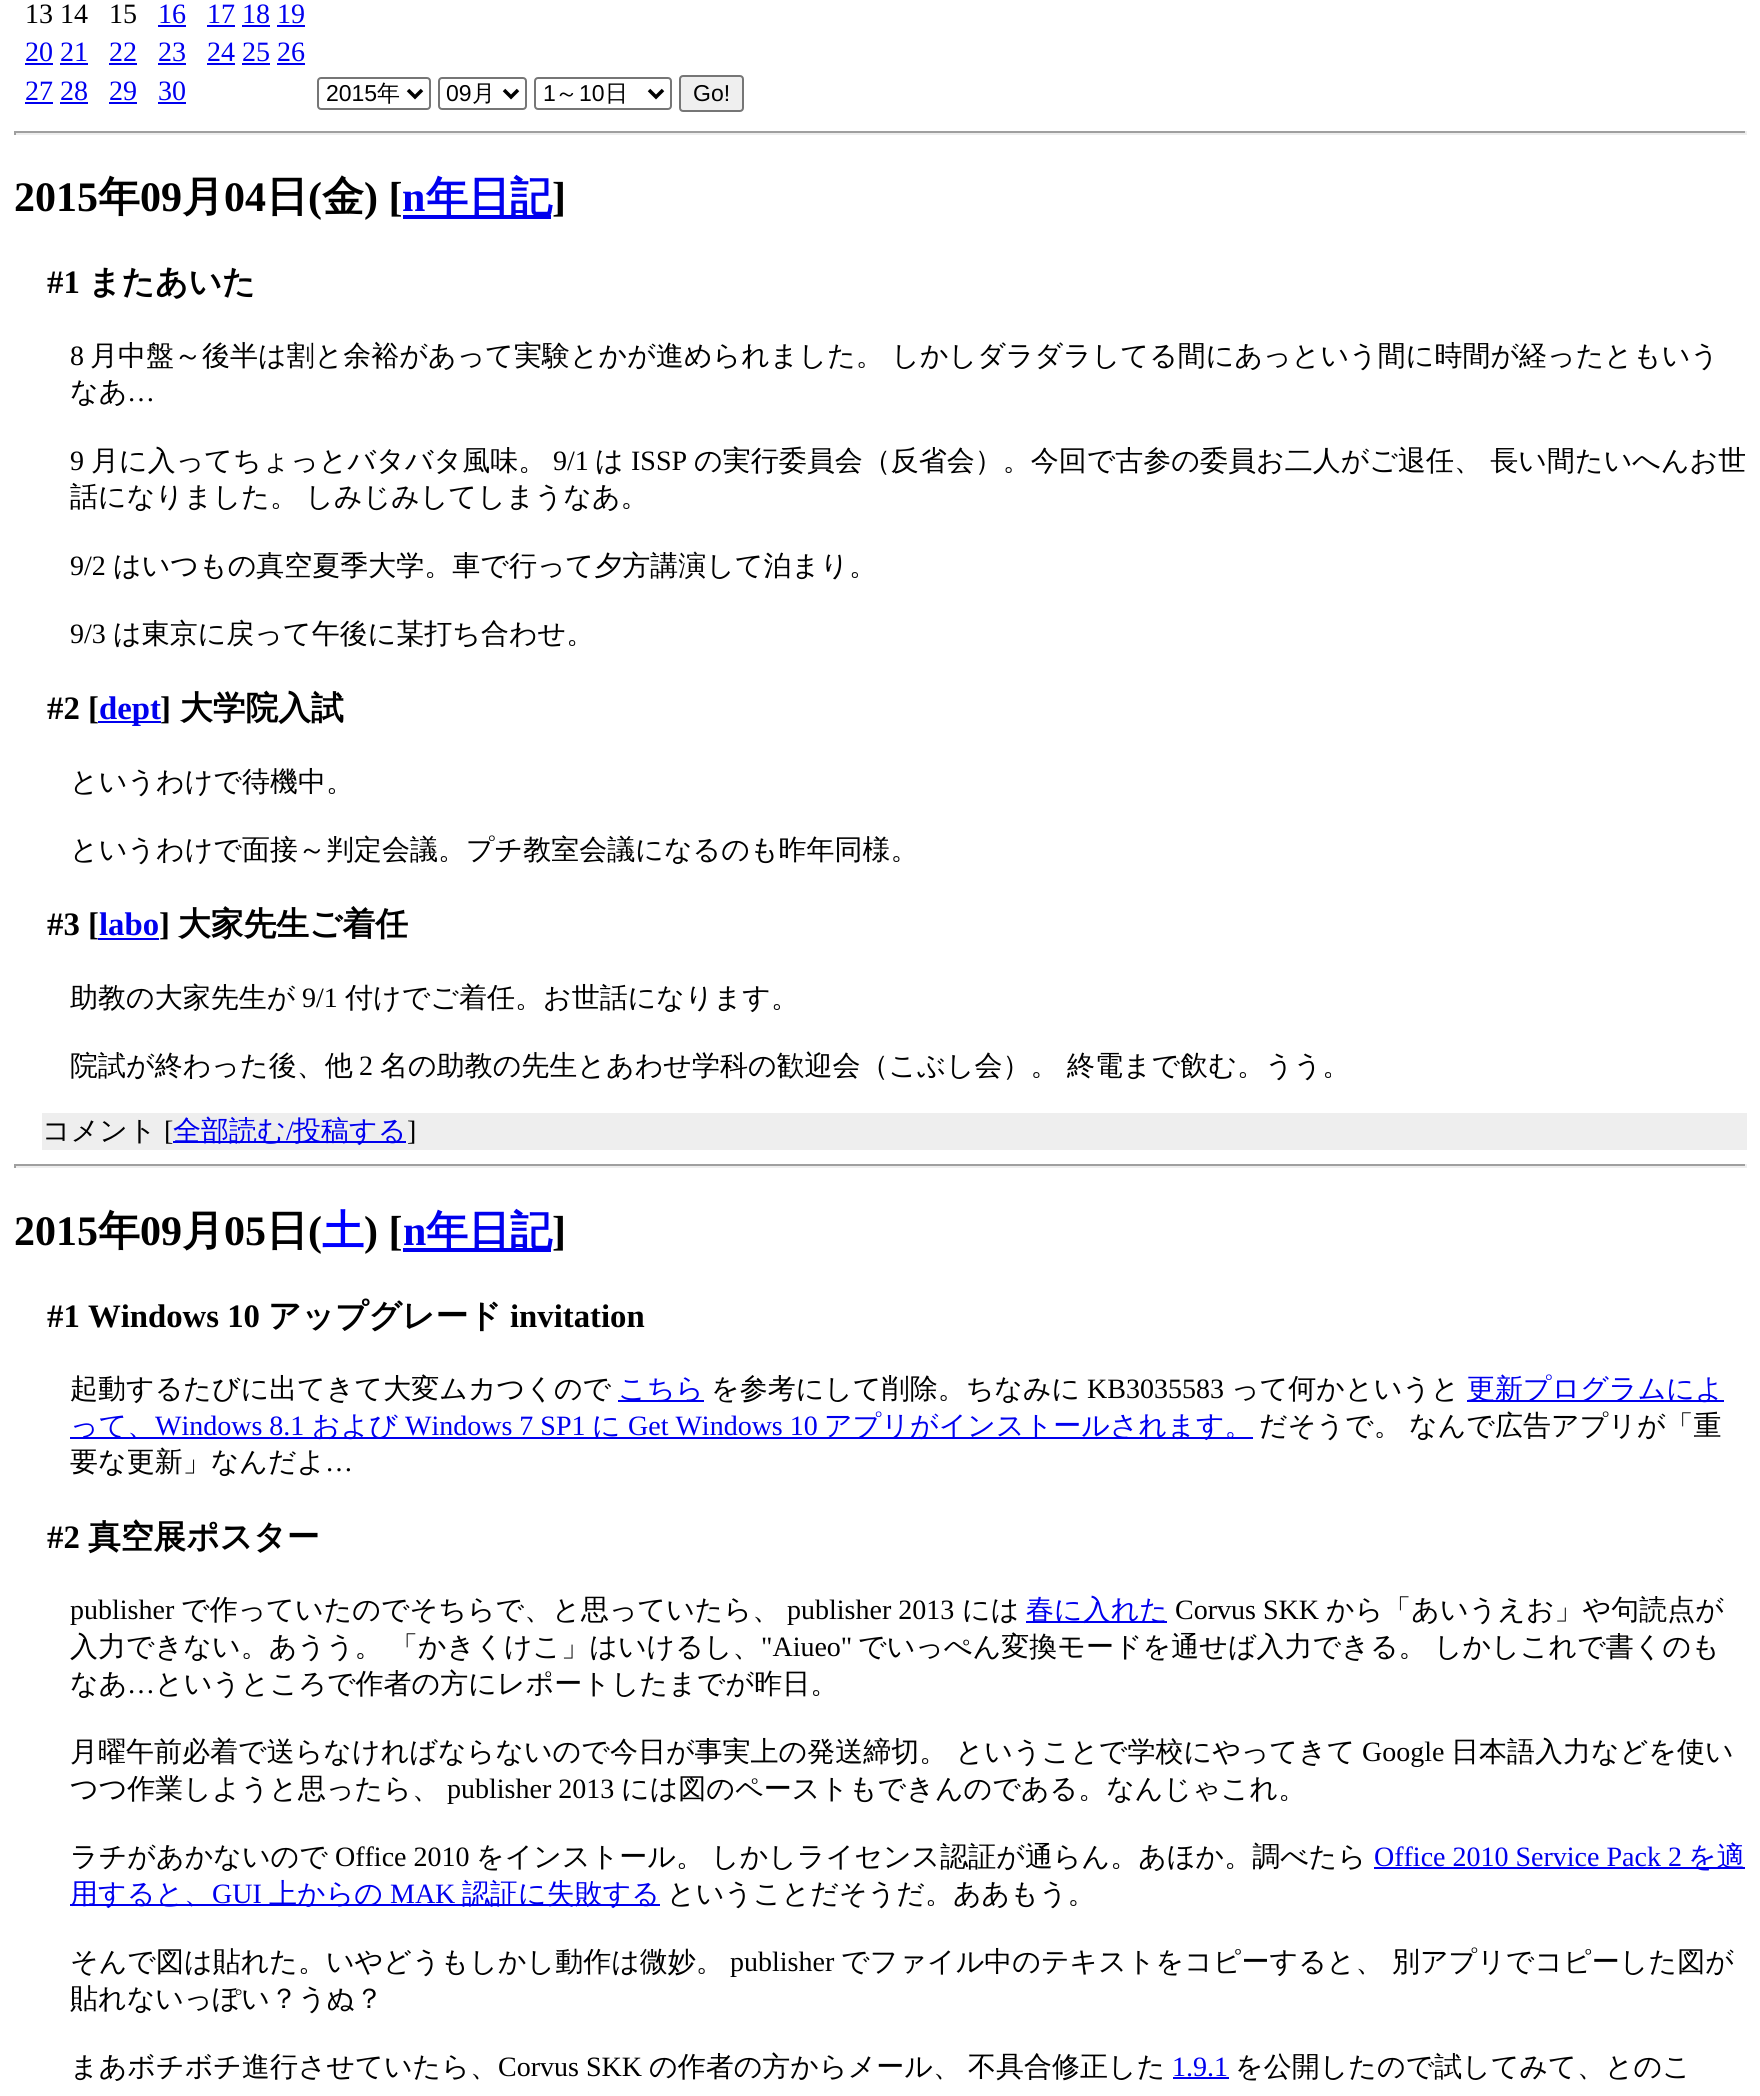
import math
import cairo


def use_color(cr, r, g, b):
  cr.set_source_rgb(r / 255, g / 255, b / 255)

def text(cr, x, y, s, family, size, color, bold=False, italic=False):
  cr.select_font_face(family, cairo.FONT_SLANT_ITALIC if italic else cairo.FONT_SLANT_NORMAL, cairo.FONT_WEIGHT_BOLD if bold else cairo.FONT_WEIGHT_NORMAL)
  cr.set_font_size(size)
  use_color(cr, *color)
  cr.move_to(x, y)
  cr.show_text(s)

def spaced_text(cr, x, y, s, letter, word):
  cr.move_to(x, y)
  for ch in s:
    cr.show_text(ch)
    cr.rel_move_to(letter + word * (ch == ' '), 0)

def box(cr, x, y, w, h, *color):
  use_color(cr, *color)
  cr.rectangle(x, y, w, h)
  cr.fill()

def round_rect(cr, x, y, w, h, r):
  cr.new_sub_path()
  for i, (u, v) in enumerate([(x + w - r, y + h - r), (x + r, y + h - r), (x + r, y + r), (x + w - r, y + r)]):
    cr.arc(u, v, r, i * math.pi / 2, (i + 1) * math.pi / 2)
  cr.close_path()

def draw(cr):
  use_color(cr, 255, 255, 255)
  cr.paint()
  box(cr, 158, 25, 28, 2, 0, 0, 238)
  box(cr, 207, 25, 28, 2, 0, 0, 238)
  box(cr, 242, 25, 28, 2, 0, 0, 238)
  box(cr, 277, 25, 28, 2, 0, 0, 238)
  box(cr, 25, 63, 28, 2, 0, 0, 238)
  box(cr, 109, 63, 28, 2, 0, 0, 238)
  box(cr, 158, 63, 28, 2, 0, 0, 238)
  box(cr, 207, 63, 28, 2, 0, 0, 238)
  box(cr, 60, 63, 28, 2, 0, 0, 238)
  box(cr, 242, 63, 28, 2, 0, 0, 238)
  box(cr, 277, 63, 28, 2, 0, 0, 238)
  box(cr, 25, 102, 28, 2, 0, 0, 238)
  box(cr, 109, 102, 28, 2, 0, 0, 238)
  box(cr, 158, 102, 28, 2, 0, 0, 238)
  box(cr, 60, 102, 28, 2, 0, 0, 238)
  round_rect(cr, 318, 78, 112, 31, 3)
  use_color(cr, 118, 118, 118)
  cr.stroke()
  cr.new_path()
  cr.move_to(408, 90)
  cr.line_to(415, 97)
  cr.line_to(422, 90)
  use_color(cr, 0, 0, 0)
  cr.set_line_width(3.5)
  cr.stroke()
  round_rect(cr, 439, 78, 87, 31, 3)
  use_color(cr, 118, 118, 118)
  cr.set_line_width(2)
  cr.stroke()
  cr.new_path()
  cr.move_to(504, 90)
  cr.line_to(511, 97)
  cr.line_to(518, 90)
  use_color(cr, 0, 0, 0)
  cr.set_line_width(3.5)
  cr.stroke()
  round_rect(cr, 535, 78, 136, 31, 3)
  use_color(cr, 118, 118, 118)
  cr.set_line_width(2)
  cr.stroke()
  cr.new_path()
  cr.move_to(649, 90)
  cr.line_to(656, 97)
  cr.line_to(663, 90)
  use_color(cr, 0, 0, 0)
  cr.set_line_width(3.5)
  cr.stroke()
  use_color(cr, 239, 239, 239)
  round_rect(cr, 680, 76, 63, 35, 3)
  cr.fill_preserve()
  use_color(cr, 118, 118, 118)
  cr.set_line_width(2)
  cr.stroke()
  box(cr, 14, 131, 1733, 2, 159, 159, 159)
  box(cr, 1745, 131, 2, 4, 238, 238, 238)
  box(cr, 14, 133, 1733, 2, 238, 238, 238)
  box(cr, 14, 131, 2, 4, 159, 159, 159)
  box(cr, 403, 215, 148, 4, 0, 0, 238)
  box(cr, 98, 721, 63, 2, 0, 0, 238)
  box(cr, 98, 938, 61, 2, 0, 0, 238)
  box(cr, 42, 1113, 1705, 37, 238, 238, 238)
  box(cr, 173, 1141, 233, 2, 0, 0, 238)
  box(cr, 14, 1164, 1733, 2, 159, 159, 159)
  box(cr, 1745, 1164, 2, 4, 238, 238, 238)
  box(cr, 14, 1166, 1733, 2, 238, 238, 238)
  box(cr, 14, 1164, 2, 4, 159, 159, 159)
  box(cr, 403, 1248, 148, 4, 0, 0, 238)
  box(cr, 618, 1400, 86, 2, 0, 0, 238)
  box(cr, 1467, 1400, 257, 2, 0, 0, 238)
  box(cr, 70, 1437, 1183, 2, 0, 0, 238)
  box(cr, 1026, 1621, 141, 2, 0, 0, 238)
  box(cr, 1374, 1867, 371, 2, 0, 0, 238)
  box(cr, 70, 1904, 590, 2, 0, 0, 238)
  box(cr, 1173, 2077, 56, 2, 0, 0, 238)
  text(cr, 25, 23, "13 14", "Liberation Serif", 28, (0, 0, 0))
  text(cr, 109, 23, "15", "Liberation Serif", 28, (0, 0, 0))
  text(cr, 158, 23, "16", "Liberation Serif", 28, (0, 0, 238))
  text(cr, 207, 23, "17 18 19", "Liberation Serif", 28, (0, 0, 238))
  text(cr, 25, 61, "20 21", "Liberation Serif", 28, (0, 0, 238))
  text(cr, 109, 61, "22", "Liberation Serif", 28, (0, 0, 238))
  text(cr, 158, 61, "23", "Liberation Serif", 28, (0, 0, 238))
  text(cr, 207, 61, "24 25 26", "Liberation Serif", 28, (0, 0, 238))
  text(cr, 25, 100, "27 28", "Liberation Serif", 28, (0, 0, 238))
  text(cr, 109, 100, "29", "Liberation Serif", 28, (0, 0, 238))
  text(cr, 158, 100, "30", "Liberation Serif", 28, (0, 0, 238))
  text(cr, 326, 101, "2015", "Liberation Sans", 23, (0, 0, 0))
  text(cr, 377, 101, "年", "WenQuanYi Zen Hei Medium", 23, (0, 0, 0))
  text(cr, 446, 101, "09", "Liberation Sans", 23, (0, 0, 0))
  text(cr, 472, 101, "月", "WenQuanYi Zen Hei Medium", 23, (0, 0, 0))
  text(cr, 543, 101, "1", "Liberation Sans", 23, (0, 0, 0))
  text(cr, 555, 101, "～", "WenQuanYi Zen Hei Medium", 23, (0, 0, 0))
  text(cr, 579, 101, "10", "Liberation Sans", 23, (0, 0, 0))
  text(cr, 605, 101, "日", "WenQuanYi Zen Hei Medium", 23, (0, 0, 0))
  text(cr, 693, 101, "Go!", "Liberation Sans", 23, (0, 0, 0))
  text(cr, 14, 211, "2015", "Liberation Serif", 42, (0, 0, 0), bold=True)
  text(cr, 98, 211, "年", "WenQuanYi Zen Hei", 42, (0, 0, 0), bold=True)
  text(cr, 140, 211, "09", "Liberation Serif", 42, (0, 0, 0), bold=True)
  text(cr, 182, 211, "月", "WenQuanYi Zen Hei", 42, (0, 0, 0), bold=True)
  text(cr, 224, 211, "04", "Liberation Serif", 42, (0, 0, 0), bold=True)
  text(cr, 266, 211, "日", "WenQuanYi Zen Hei", 42, (0, 0, 0), bold=True)
  text(cr, 308, 211, "(", "Liberation Serif", 42, (0, 0, 0), bold=True)
  text(cr, 322, 211, "金", "WenQuanYi Zen Hei", 42, (0, 0, 0), bold=True)
  text(cr, 364, 211, ") [", "Liberation Serif", 42, (0, 0, 0), bold=True)
  text(cr, 402, 211, "n", "Liberation Serif", 42, (0, 0, 238), bold=True)
  text(cr, 426, 211, "年日記", "WenQuanYi Zen Hei", 42, (0, 0, 238), bold=True)
  text(cr, 552, 211, "]", "Liberation Serif", 42, (0, 0, 0), bold=True)
  text(cr, 47, 293, "#1", "Liberation Serif", 32.75, (0, 0, 0), bold=True)
  text(cr, 88, 293, "またあいた", "WenQuanYi Zen Hei", 32.75, (0, 0, 0), bold=True)
  text(cr, 70, 365, "8", "Liberation Serif", 28, (0, 0, 0))
  cr.select_font_face("WenQuanYi Zen Hei Medium")
  spaced_text(cr, 90, 365, "月中盤～後半は割と余裕があって実験とかが進められました。 しかしダラダラしてる間にあっという間に時間が経ったともいう", 0, -1)
  text(cr, 70, 401, "なあ", "WenQuanYi Zen Hei Medium", 28, (0, 0, 0))
  text(cr, 127, 401, "…", "Liberation Serif", 28, (0, 0, 0))
  text(cr, 70, 470, "9", "Liberation Serif", 28, (0, 0, 0))
  text(cr, 91, 470, "月に入ってちょっとバタバタ風味。", "WenQuanYi Zen Hei Medium", 28, (0, 0, 0))
  text(cr, 553, 470, "9/1", "Liberation Serif", 28, (0, 0, 0))
  text(cr, 595, 470, "は", "WenQuanYi Zen Hei Medium", 28, (0, 0, 0))
  text(cr, 631, 470, "ISSP", "Liberation Serif", 28, (0, 0, 0))
  text(cr, 694, 470, "の実行委員会（反省会）。今回で古参の委員お二人がご退任、 長い間たいへんお世", "WenQuanYi Zen Hei Medium", 28, (0, 0, 0))
  spaced_text(cr, 70, 506, "話になりました。 しみじみしてしまうなあ。", 0, -1)
  text(cr, 70, 575, "9/2", "Liberation Serif", 28, (0, 0, 0))
  text(cr, 113, 575, "はいつもの真空夏季大学。車で行って夕方講演して泊まり。", "WenQuanYi Zen Hei Medium", 28, (0, 0, 0))
  text(cr, 70, 643, "9/3", "Liberation Serif", 28, (0, 0, 0))
  text(cr, 113, 643, "は東京に戻って午後に某打ち合わせ。", "WenQuanYi Zen Hei Medium", 28, (0, 0, 0))
  text(cr, 47, 719, "#2 [", "Liberation Serif", 32.75, (0, 0, 0), bold=True)
  text(cr, 99, 719, "dept", "Liberation Serif", 32.75, (0, 0, 238), bold=True)
  text(cr, 160, 719, "]", "Liberation Serif", 32.75, (0, 0, 0), bold=True)
  text(cr, 180, 719, "大学院入試", "WenQuanYi Zen Hei", 32.75, (0, 0, 0), bold=True)
  text(cr, 70, 791, "というわけで待機中。", "WenQuanYi Zen Hei Medium", 28, (0, 0, 0))
  text(cr, 70, 859, "というわけで面接～判定会議。プチ教室会議になるのも昨年同様。", "WenQuanYi Zen Hei Medium", 28, (0, 0, 0))
  text(cr, 47, 935, "#3 [", "Liberation Serif", 32.75, (0, 0, 0), bold=True)
  text(cr, 99, 935, "labo", "Liberation Serif", 32.75, (0, 0, 238), bold=True)
  text(cr, 159, 935, "]", "Liberation Serif", 32.75, (0, 0, 0), bold=True)
  text(cr, 178, 935, "大家先生ご着任", "WenQuanYi Zen Hei", 32.75, (0, 0, 0), bold=True)
  text(cr, 70, 1007, "助教の大家先生が", "WenQuanYi Zen Hei Medium", 28, (0, 0, 0))
  text(cr, 302, 1007, "9/1", "Liberation Serif", 28, (0, 0, 0))
  text(cr, 345, 1007, "付けでご着任。お世話になります。", "WenQuanYi Zen Hei Medium", 28, (0, 0, 0))
  text(cr, 70, 1075, "院試が終わった後、他", "WenQuanYi Zen Hei Medium", 28, (0, 0, 0))
  text(cr, 359, 1075, "2", "Liberation Serif", 28, (0, 0, 0))
  text(cr, 380, 1075, "名の助教の先生とあわせ学科の歓迎会（こぶし会）。 終電まで飲む。うう。", "WenQuanYi Zen Hei Medium", 28, (0, 0, 0))
  text(cr, 42, 1140, "コメント", "WenQuanYi Zen Hei Medium", 28, (0, 0, 0))
  text(cr, 164, 1140, "[", "Liberation Serif", 28, (0, 0, 0))
  text(cr, 173, 1140, "全部読む", "WenQuanYi Zen Hei Medium", 28, (0, 0, 238))
  text(cr, 286, 1140, "/", "Liberation Serif", 28, (0, 0, 238))
  text(cr, 293, 1140, "投稿する", "WenQuanYi Zen Hei Medium", 28, (0, 0, 238))
  text(cr, 407, 1140, "]", "Liberation Serif", 28, (0, 0, 0))
  text(cr, 14, 1245, "2015", "Liberation Serif", 42, (0, 0, 0), bold=True)
  text(cr, 98, 1245, "年", "WenQuanYi Zen Hei", 42, (0, 0, 0), bold=True)
  text(cr, 140, 1245, "09", "Liberation Serif", 42, (0, 0, 0), bold=True)
  text(cr, 182, 1245, "月", "WenQuanYi Zen Hei", 42, (0, 0, 0), bold=True)
  text(cr, 224, 1245, "05", "Liberation Serif", 42, (0, 0, 0), bold=True)
  text(cr, 266, 1245, "日", "WenQuanYi Zen Hei", 42, (0, 0, 0), bold=True)
  text(cr, 308, 1245, "(", "Liberation Serif", 42, (0, 0, 0), bold=True)
  text(cr, 322, 1245, "土", "WenQuanYi Zen Hei", 42, (0, 0, 255), bold=True)
  text(cr, 364, 1245, ") [", "Liberation Serif", 42, (0, 0, 0), bold=True)
  text(cr, 403, 1245, "n", "Liberation Serif", 42, (0, 0, 238), bold=True)
  text(cr, 426, 1245, "年日記", "WenQuanYi Zen Hei", 42, (0, 0, 238), bold=True)
  text(cr, 552, 1245, "]", "Liberation Serif", 42, (0, 0, 0), bold=True)
  text(cr, 47, 1327, "#1 Windows 10", "Liberation Serif", 32.75, (0, 0, 0), bold=True)
  text(cr, 268, 1327, "アップグレード", "WenQuanYi Zen Hei", 32.75, (0, 0, 0), bold=True)
  text(cr, 510, 1327, "invitation", "Liberation Serif", 32.75, (0, 0, 0), bold=True)
  text(cr, 70, 1398, "起動するたびに出てきて大変ムカつくので", "WenQuanYi Zen Hei Medium", 28, (0, 0, 0))
  text(cr, 618, 1398, "こちら", "WenQuanYi Zen Hei Medium", 28, (0, 0, 238))
  text(cr, 711, 1398, "を参考にして削除。ちなみに", "WenQuanYi Zen Hei Medium", 28, (0, 0, 0))
  text(cr, 1087, 1398, "KB3035583", "Liberation Serif", 28, (0, 0, 0))
  text(cr, 1231, 1398, "って何かというと", "WenQuanYi Zen Hei Medium", 28, (0, 0, 0))
  text(cr, 1467, 1398, "更新プログラムによ", "WenQuanYi Zen Hei Medium", 28, (0, 0, 238))
  text(cr, 70, 1435, "って、", "WenQuanYi Zen Hei Medium", 28, (0, 0, 238))
  text(cr, 155, 1435, "Windows 8.1", "Liberation Serif", 28, (0, 0, 238))
  text(cr, 312, 1435, "および", "WenQuanYi Zen Hei Medium", 28, (0, 0, 238))
  text(cr, 405, 1435, "Windows 7 SP1", "Liberation Serif", 28, (0, 0, 238))
  text(cr, 592, 1435, "に", "WenQuanYi Zen Hei Medium", 28, (0, 0, 238))
  text(cr, 628, 1435, "Get Windows 10", "Liberation Serif", 28, (0, 0, 238))
  text(cr, 824, 1435, "アプリがインストールされます。", "WenQuanYi Zen Hei Medium", 28, (0, 0, 238))
  use_color(cr, 0, 0, 0)
  spaced_text(cr, 1259, 1435, "だそうで。 なんで広告アプリが「重", 0, -1)
  text(cr, 70, 1471, "要な更新」なんだよ", "WenQuanYi Zen Hei Medium", 28, (0, 0, 0))
  text(cr, 325, 1471, "…", "Liberation Serif", 28, (0, 0, 0))
  text(cr, 47, 1548, "#2", "Liberation Serif", 32.75, (0, 0, 0), bold=True)
  text(cr, 88, 1548, "真空展ポスター", "WenQuanYi Zen Hei", 32.75, (0, 0, 0), bold=True)
  text(cr, 70, 1619, "publisher", "Liberation Serif", 28, (0, 0, 0))
  text(cr, 181, 1619, "で作っていたのでそちらで、と思っていたら、", "WenQuanYi Zen Hei Medium", 28, (0, 0, 0))
  text(cr, 787, 1619, "publisher 2013", "Liberation Serif", 28, (0, 0, 0))
  text(cr, 962, 1619, "には", "WenQuanYi Zen Hei Medium", 28, (0, 0, 0))
  text(cr, 1026, 1619, "春に入れた", "WenQuanYi Zen Hei Medium", 28, (0, 0, 238))
  text(cr, 1175, 1619, "Corvus SKK", "Liberation Serif", 28, (0, 0, 0))
  text(cr, 1326, 1619, "から「あいうえお」や句読点が", "WenQuanYi Zen Hei Medium", 28, (0, 0, 0))
  spaced_text(cr, 70, 1656, "入力できない。あうう。 「かきくけこ」はいけるし、", 0, -1)
  text(cr, 761, 1656, "\"Aiueo\"", "Liberation Serif", 28, (0, 0, 0))
  cr.select_font_face("WenQuanYi Zen Hei Medium")
  spaced_text(cr, 858, 1656, "でいっぺん変換モードを通せば入力できる。 しかしこれで書くのも", 0, -1)
  text(cr, 70, 1693, "なあ", "WenQuanYi Zen Hei Medium", 28, (0, 0, 0))
  text(cr, 127, 1693, "…", "Liberation Serif", 28, (0, 0, 0))
  text(cr, 155, 1693, "というところで作者の方にレポートしたまでが昨日。", "WenQuanYi Zen Hei Medium", 28, (0, 0, 0))
  text(cr, 70, 1761, "月曜午前必着で送らなければならないので今日が事実上の発送締切。 ということで学校にやってきて", "WenQuanYi Zen Hei Medium", 28, (0, 0, 0))
  text(cr, 1362, 1761, "Google", "Liberation Serif", 28, (0, 0, 0))
  text(cr, 1451, 1761, "日本語入力などを使い", "WenQuanYi Zen Hei Medium", 28, (0, 0, 0))
  text(cr, 70, 1798, "つつ作業しようと思ったら、", "WenQuanYi Zen Hei Medium", 28, (0, 0, 0))
  text(cr, 447, 1798, "publisher 2013", "Liberation Serif", 28, (0, 0, 0))
  text(cr, 621, 1798, "には図のペーストもできんのである。なんじゃこれ。", "WenQuanYi Zen Hei Medium", 28, (0, 0, 0))
  text(cr, 70, 1866, "ラチがあかないので", "WenQuanYi Zen Hei Medium", 28, (0, 0, 0))
  text(cr, 335, 1866, "Office 2010", "Liberation Serif", 28, (0, 0, 0))
  text(cr, 476, 1866, "をインストール。", "WenQuanYi Zen Hei Medium", 28, (0, 0, 0))
  text(cr, 711, 1866, "しかしライセンス認証が通らん。あほか。調べたら", "WenQuanYi Zen Hei Medium", 28, (0, 0, 0))
  text(cr, 1374, 1866, "Office 2010 Service Pack 2", "Liberation Serif", 28, (0, 0, 238))
  text(cr, 1688, 1866, "を適", "WenQuanYi Zen Hei Medium", 28, (0, 0, 238))
  text(cr, 70, 1903, "用すると、", "WenQuanYi Zen Hei Medium", 28, (0, 0, 238))
  text(cr, 212, 1903, "GUI", "Liberation Serif", 28, (0, 0, 238))
  text(cr, 269, 1903, "上からの", "WenQuanYi Zen Hei Medium", 28, (0, 0, 238))
  text(cr, 390, 1903, "MAK", "Liberation Serif", 28, (0, 0, 238))
  text(cr, 462, 1903, "認証に失敗する", "WenQuanYi Zen Hei Medium", 28, (0, 0, 238))
  text(cr, 667, 1903, "ということだそうだ。ああもう。", "WenQuanYi Zen Hei Medium", 28, (0, 0, 0))
  text(cr, 70, 1971, "そんで図は貼れた。いやどうもしかし動作は微妙。", "WenQuanYi Zen Hei Medium", 28, (0, 0, 0))
  text(cr, 730, 1971, "publisher", "Liberation Serif", 28, (0, 0, 0))
  text(cr, 841, 1971, "でファイル中のテキストをコピーすると、 別アプリでコピーした図が", "WenQuanYi Zen Hei Medium", 28, (0, 0, 0))
  text(cr, 70, 2008, "貼れないっぽい？うぬ？", "WenQuanYi Zen Hei Medium", 28, (0, 0, 0))
  text(cr, 70, 2076, "まあボチボチ進行させていたら、", "WenQuanYi Zen Hei Medium", 28, (0, 0, 0))
  text(cr, 498, 2076, "Corvus SKK", "Liberation Serif", 28, (0, 0, 0))
  text(cr, 649, 2076, "の作者の方からメール、", "WenQuanYi Zen Hei Medium", 28, (0, 0, 0))
  text(cr, 968, 2076, "不具合修正した", "WenQuanYi Zen Hei Medium", 28, (0, 0, 0))
  text(cr, 1172, 2076, "1.9.1", "Liberation Serif", 28, (0, 0, 238))
  text(cr, 1235, 2076, "を公開したので試してみて、とのこ", "WenQuanYi Zen Hei Medium", 28, (0, 0, 0))


surface = cairo.ImageSurface(cairo.FORMAT_RGB24, 1760, 2096)
cr = cairo.Context(surface)
options = cairo.FontOptions()
options.set_hint_metrics(cairo.HINT_METRICS_OFF)
options.set_hint_style(cairo.HINT_STYLE_NONE)
cr.set_font_options(options)
cr.set_miter_limit(4)
draw(cr)
surface.write_to_png("out.png")
